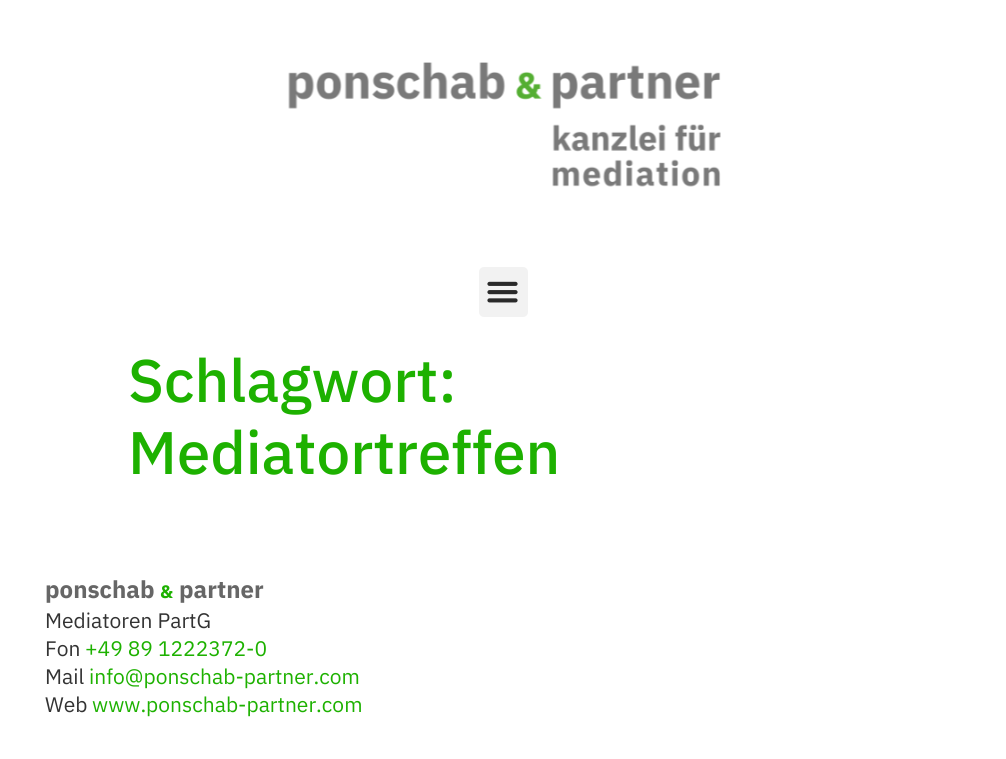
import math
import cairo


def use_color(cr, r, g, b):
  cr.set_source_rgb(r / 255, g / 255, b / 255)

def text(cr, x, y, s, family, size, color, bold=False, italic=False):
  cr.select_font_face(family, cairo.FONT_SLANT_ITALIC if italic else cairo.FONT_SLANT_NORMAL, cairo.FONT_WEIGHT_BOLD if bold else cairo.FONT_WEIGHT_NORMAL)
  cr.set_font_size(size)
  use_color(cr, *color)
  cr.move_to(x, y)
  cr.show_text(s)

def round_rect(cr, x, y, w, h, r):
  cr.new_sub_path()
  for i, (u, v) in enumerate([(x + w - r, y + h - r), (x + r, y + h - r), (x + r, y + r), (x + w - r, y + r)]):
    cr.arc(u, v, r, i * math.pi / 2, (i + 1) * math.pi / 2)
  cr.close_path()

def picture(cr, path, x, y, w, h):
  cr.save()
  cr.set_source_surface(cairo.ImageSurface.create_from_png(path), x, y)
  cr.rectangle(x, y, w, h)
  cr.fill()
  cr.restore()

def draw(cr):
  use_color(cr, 255, 255, 255)
  cr.paint()
  picture(cr, "img_01.png", 288, 62, 433, 125)
  use_color(cr, 242, 242, 242)
  round_rect(cr, 479, 267, 49, 50, 5)
  cr.fill()
  picture(cr, "img_02.png", 487, 281, 31, 22)
  text(cr, 128, 402, "Schlagwort:", "IBM Plex Sans Medium", 60, (29, 177, 0))
  text(cr, 128, 474, "Mediatortreffen", "IBM Plex Sans Medium", 60, (29, 177, 0))
  text(cr, 45, 598, "ponschab", "IBM Plex Sans", 24, (102, 102, 102), bold=True)
  text(cr, 160, 598, "&", "IBM Plex Sans", 18, (29, 177, 0), bold=True)
  text(cr, 179, 598, "partner", "IBM Plex Sans", 24, (102, 102, 102), bold=True)
  text(cr, 45, 628, "Mediatoren PartG", "IBM Plex Sans", 21, (51, 51, 51))
  text(cr, 45, 656, "Fon", "IBM Plex Sans", 21, (51, 51, 51))
  text(cr, 85, 656, "+49 89 1222372-0", "IBM Plex Sans", 21, (29, 177, 0))
  text(cr, 45, 684, "Mail", "IBM Plex Sans", 21, (51, 51, 51))
  text(cr, 89, 684, "info@ponschab-partner.com", "IBM Plex Sans", 21, (29, 177, 0))
  text(cr, 45, 712, "Web", "IBM Plex Sans", 21, (51, 51, 51))
  text(cr, 92, 712, "www.ponschab-partner.com", "IBM Plex Sans", 21, (29, 177, 0))


surface = cairo.ImageSurface(cairo.FORMAT_RGB24, 1006, 759)
cr = cairo.Context(surface)
options = cairo.FontOptions()
options.set_hint_metrics(cairo.HINT_METRICS_OFF)
options.set_hint_style(cairo.HINT_STYLE_NONE)
cr.set_font_options(options)
cr.set_miter_limit(4)
draw(cr)
surface.write_to_png("out.png")
